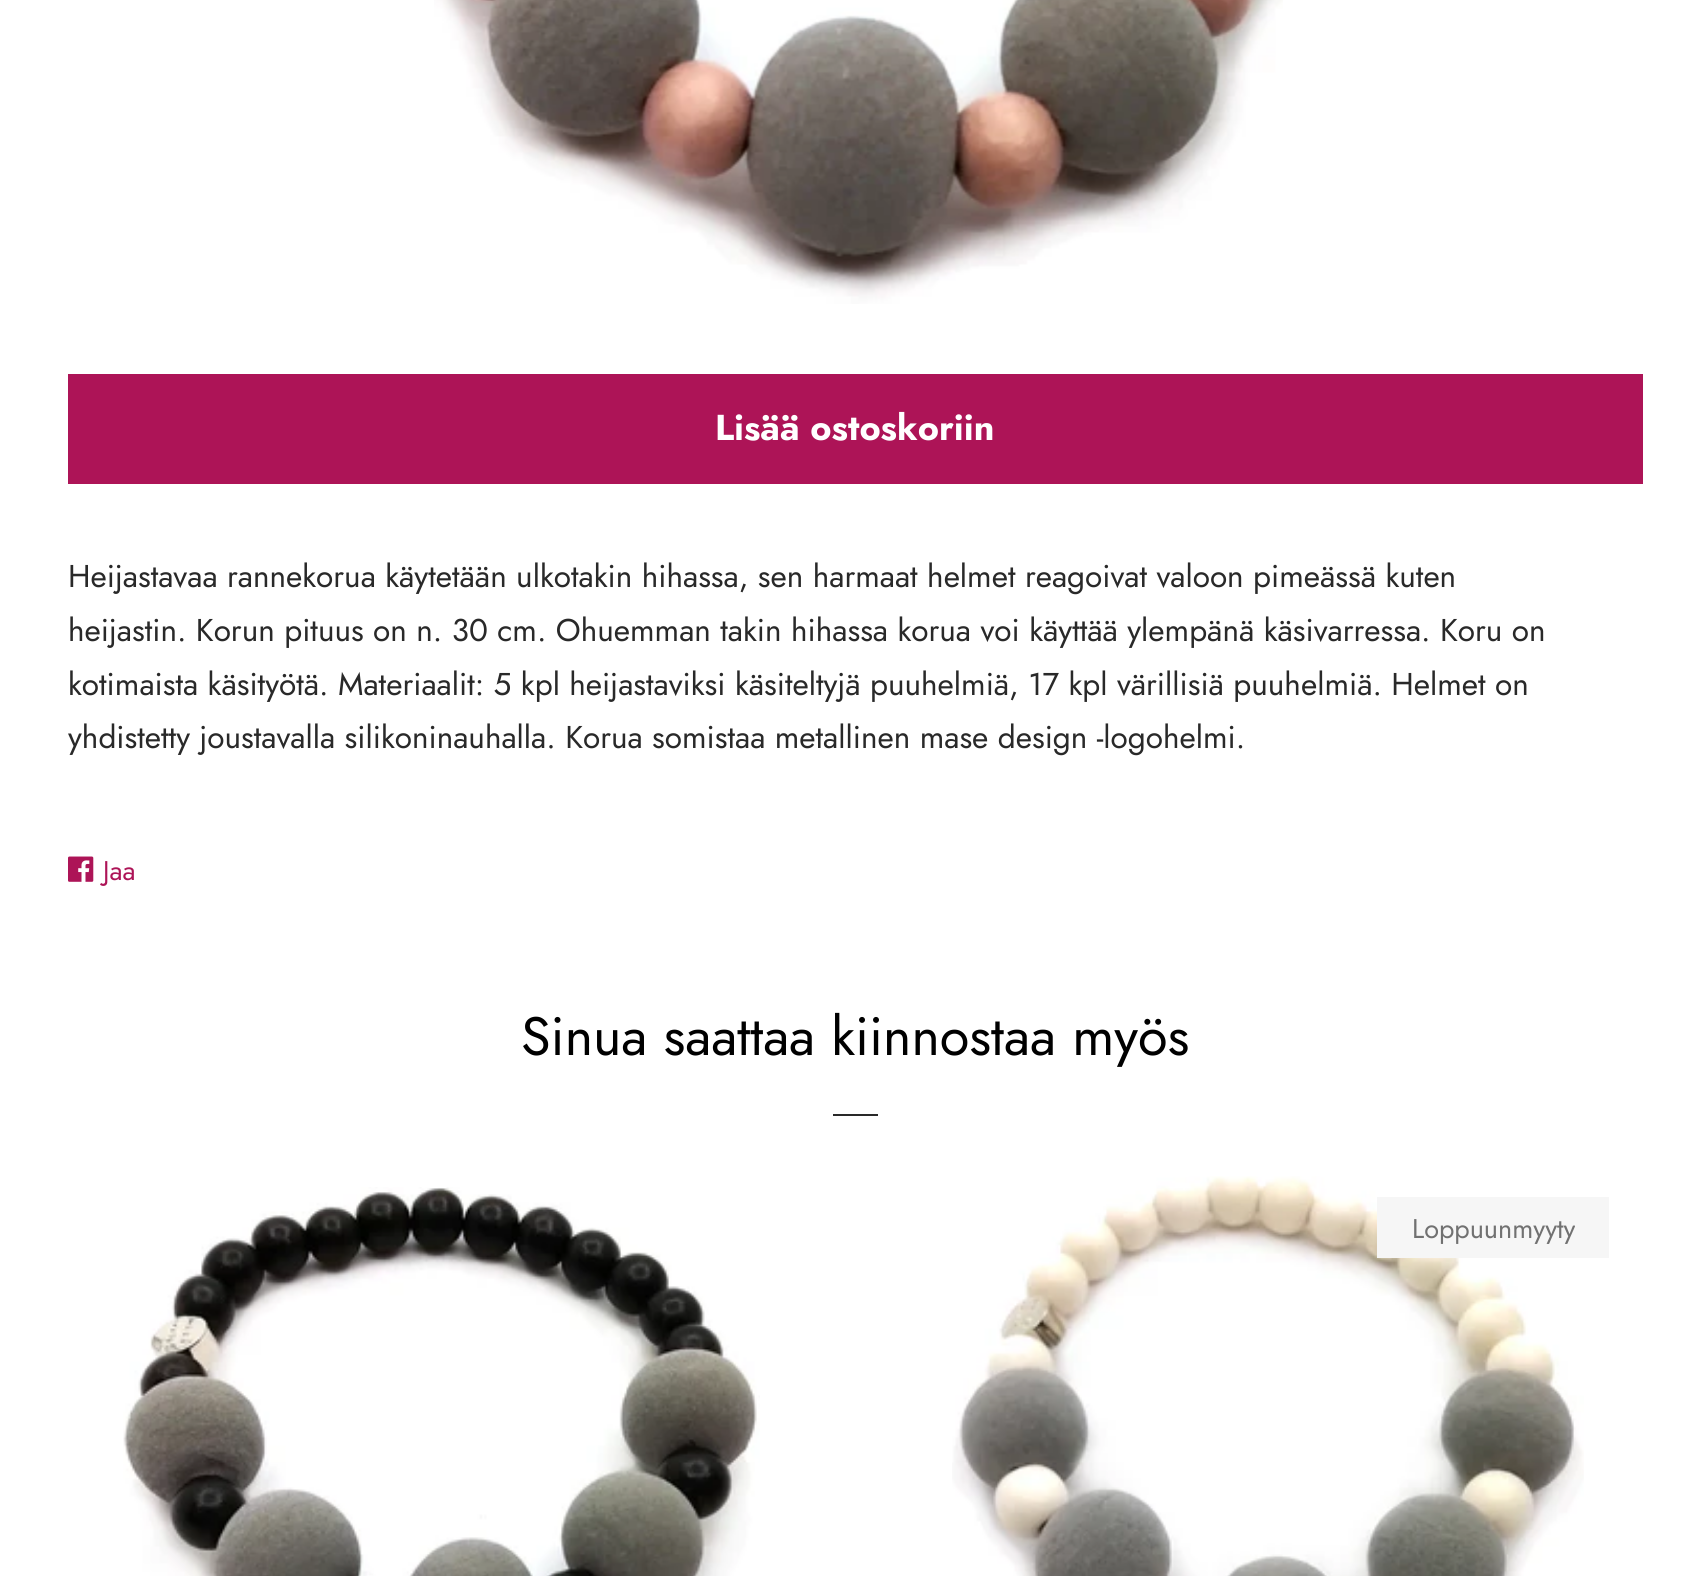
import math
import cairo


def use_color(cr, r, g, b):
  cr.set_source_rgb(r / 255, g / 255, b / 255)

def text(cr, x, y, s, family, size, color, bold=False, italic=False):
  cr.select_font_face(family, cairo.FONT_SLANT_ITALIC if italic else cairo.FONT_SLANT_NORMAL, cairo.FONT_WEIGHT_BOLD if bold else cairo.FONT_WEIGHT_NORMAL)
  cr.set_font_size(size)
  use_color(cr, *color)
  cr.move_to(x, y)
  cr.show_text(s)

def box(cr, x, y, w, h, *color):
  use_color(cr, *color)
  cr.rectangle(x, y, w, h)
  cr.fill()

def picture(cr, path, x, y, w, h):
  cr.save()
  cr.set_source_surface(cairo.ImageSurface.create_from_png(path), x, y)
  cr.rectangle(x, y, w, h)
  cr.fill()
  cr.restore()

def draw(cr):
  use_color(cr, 255, 255, 255)
  cr.paint()
  picture(cr, "img_01.png", 434, 0, 849, 304)
  box(cr, 68, 374, 1575, 110, 173, 20, 87)
  picture(cr, "img_02.png", 68, 856, 26, 26)
  box(cr, 833, 1114, 45, 2, 41, 41, 41)
  picture(cr, "img_03.png", 123, 1187, 637, 389)
  picture(cr, "img_04.png", 952, 1176, 632, 400)
  box(cr, 1377, 1197, 232, 61, 246, 246, 246)
  text(cr, 715, 440, "Lisää ostoskoriin", "Jost", 36, (255, 255, 255), bold=True)
  text(cr, 68, 587, "Heijastavaa rannekorua käytetään ulkotakin hihassa, sen harmaat helmet reagoivat valoon pimeässä kuten", "Jost", 31.5, (41, 41, 41))
  text(cr, 68, 641, "heijastin. Korun pituus on n. 30 cm. Ohuemman takin hihassa korua voi käyttää ylempänä käsivarressa. Koru on", "Jost", 31.5, (41, 41, 41))
  text(cr, 68, 695, "kotimaista käsityötä. Materiaalit: 5 kpl heijastaviksi käsiteltyjä puuhelmiä, 17 kpl värillisiä puuhelmiä. Helmet on", "Jost", 31.5, (41, 41, 41))
  text(cr, 68, 748, "yhdistetty joustavalla silikoninauhalla. Korua somistaa metallinen mase design -logohelmi.", "Jost", 31.5, (41, 41, 41))
  text(cr, 103, 880, "Jaa", "Jost", 27, (173, 20, 87))
  text(cr, 521, 1055, "Sinua saattaa kiinnostaa myös", "Jost", 54, (0, 0, 0))
  text(cr, 1412, 1238, "Loppuunmyyty", "Jost", 27, (113, 113, 113))


surface = cairo.ImageSurface(cairo.FORMAT_RGB24, 1708, 1576)
cr = cairo.Context(surface)
options = cairo.FontOptions()
options.set_hint_metrics(cairo.HINT_METRICS_OFF)
options.set_hint_style(cairo.HINT_STYLE_NONE)
cr.set_font_options(options)
cr.set_miter_limit(4)
draw(cr)
surface.write_to_png("out.png")
